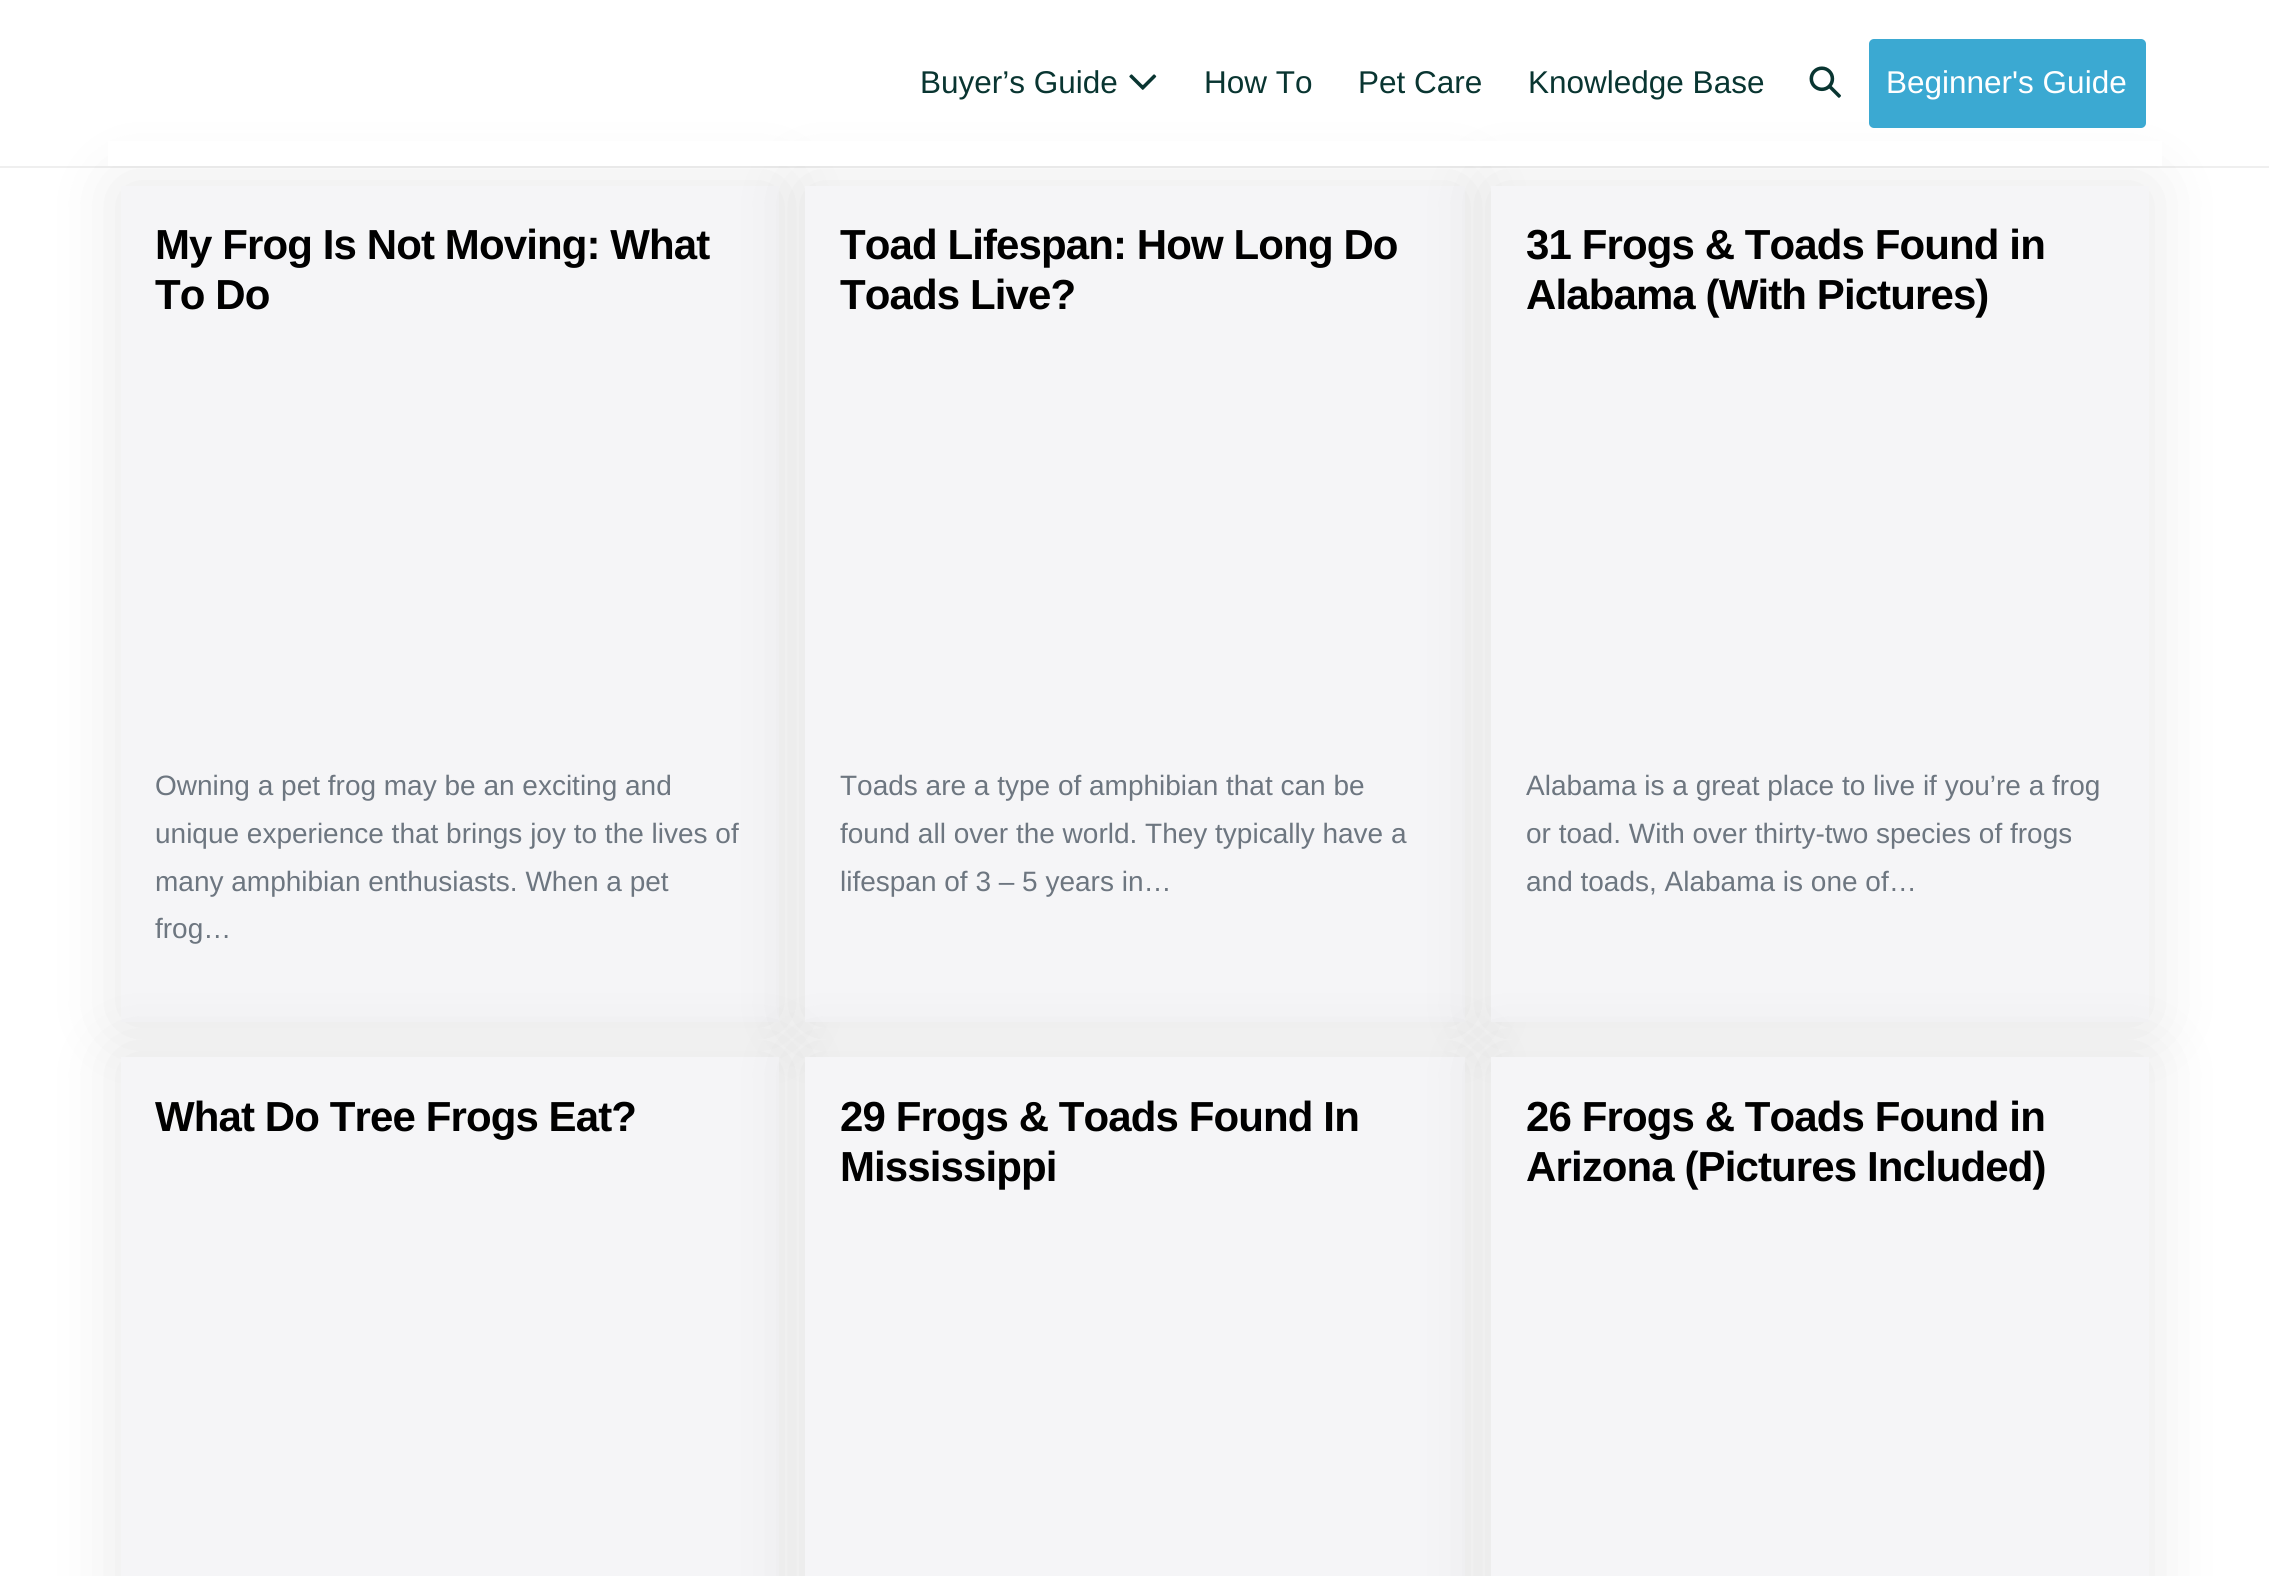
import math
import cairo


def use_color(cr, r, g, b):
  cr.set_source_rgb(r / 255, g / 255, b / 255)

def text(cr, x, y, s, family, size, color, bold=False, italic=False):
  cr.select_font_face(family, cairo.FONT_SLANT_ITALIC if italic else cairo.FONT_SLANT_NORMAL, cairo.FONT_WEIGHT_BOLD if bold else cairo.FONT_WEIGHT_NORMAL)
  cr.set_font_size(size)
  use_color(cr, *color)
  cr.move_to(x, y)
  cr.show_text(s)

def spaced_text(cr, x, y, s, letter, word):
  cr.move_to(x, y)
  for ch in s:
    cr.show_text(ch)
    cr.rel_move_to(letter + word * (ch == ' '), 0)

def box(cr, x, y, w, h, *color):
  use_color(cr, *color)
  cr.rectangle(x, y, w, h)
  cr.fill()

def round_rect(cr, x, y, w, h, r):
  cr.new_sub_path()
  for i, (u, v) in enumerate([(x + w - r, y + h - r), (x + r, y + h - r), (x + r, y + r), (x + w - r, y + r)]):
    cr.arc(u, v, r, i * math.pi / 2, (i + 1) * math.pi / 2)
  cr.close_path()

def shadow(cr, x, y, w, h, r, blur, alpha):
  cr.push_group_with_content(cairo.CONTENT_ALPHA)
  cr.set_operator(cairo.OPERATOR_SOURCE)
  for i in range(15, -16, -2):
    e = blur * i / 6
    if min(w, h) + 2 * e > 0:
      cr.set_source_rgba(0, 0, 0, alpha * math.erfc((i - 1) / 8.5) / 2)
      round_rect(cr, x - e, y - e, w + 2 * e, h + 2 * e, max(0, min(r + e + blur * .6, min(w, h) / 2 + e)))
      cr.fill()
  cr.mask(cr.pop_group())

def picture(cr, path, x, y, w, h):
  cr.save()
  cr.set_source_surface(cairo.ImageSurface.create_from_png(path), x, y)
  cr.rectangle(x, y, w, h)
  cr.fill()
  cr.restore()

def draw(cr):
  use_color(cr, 255, 255, 255)
  cr.paint()
  box(cr, 0, 166, 2269, 2, 239, 239, 239)
  use_color(cr, 0, 0, 0)
  shadow(cr, 121, 186, 658, 836, 0, 35, 0.1)
  box(cr, 121, 186, 658, 836, 245, 245, 247)
  use_color(cr, 0, 0, 0)
  shadow(cr, 805, 186, 660, 836, 0, 35, 0.1)
  box(cr, 805, 186, 660, 836, 245, 245, 247)
  use_color(cr, 0, 0, 0)
  shadow(cr, 1491, 186, 658, 836, 0, 35, 0.1)
  box(cr, 108, 141, 2054, 25, 255, 255, 255)
  picture(cr, "img_01.png", 1129, 74, 28, 16)
  picture(cr, "img_02.png", 1809, 66, 32, 32)
  use_color(cr, 59, 169, 210)
  round_rect(cr, 1869, 39, 277, 89, 5)
  cr.fill()
  box(cr, 1491, 186, 658, 836, 245, 245, 247)
  use_color(cr, 0, 0, 0)
  shadow(cr, 121, 1057, 658, 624, 0, 35, 0.1)
  box(cr, 121, 1057, 658, 519, 245, 245, 247)
  use_color(cr, 0, 0, 0)
  shadow(cr, 805, 1057, 660, 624, 0, 35, 0.1)
  box(cr, 805, 1057, 660, 519, 245, 245, 247)
  use_color(cr, 0, 0, 0)
  shadow(cr, 1491, 1057, 658, 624, 0, 35, 0.1)
  box(cr, 1491, 1057, 658, 519, 245, 245, 247)
  text(cr, 920, 93, "Buyer’s Guide", "Liberation Sans", 31.5, (9, 53, 49))
  text(cr, 1204, 93, "How To", "Liberation Sans", 31.5, (9, 53, 49))
  text(cr, 1358, 93, "Pet Care", "Liberation Sans", 31.5, (9, 53, 49))
  text(cr, 1528, 93, "Knowledge Base", "Liberation Sans", 31.5, (9, 53, 49))
  text(cr, 1886, 93, "Beginner's Guide", "Liberation Sans", 31.5, (255, 255, 255))
  cr.select_font_face("Liberation Sans", cairo.FONT_SLANT_NORMAL, cairo.FONT_WEIGHT_BOLD)
  cr.set_font_size(42)
  use_color(cr, 0, 0, 0)
  spaced_text(cr, 155, 259, "My Frog Is Not Moving: What", -0.9, 0)
  spaced_text(cr, 155, 309, "To Do", -0.9, 0)
  text(cr, 155, 795, "Owning a pet frog may be an exciting and", "Liberation Sans", 28, (109, 118, 128))
  text(cr, 155, 843, "unique experience that brings joy to the lives of", "Liberation Sans", 28, (109, 118, 128))
  text(cr, 155, 891, "many amphibian enthusiasts. When a pet", "Liberation Sans", 28, (109, 118, 128))
  text(cr, 155, 938, "frog…", "Liberation Sans", 28, (109, 118, 128))
  cr.select_font_face("Liberation Sans", cairo.FONT_SLANT_NORMAL, cairo.FONT_WEIGHT_BOLD)
  cr.set_font_size(42)
  use_color(cr, 0, 0, 0)
  spaced_text(cr, 840, 259, "Toad Lifespan: How Long Do", -0.9, 0)
  spaced_text(cr, 840, 309, "Toads Live?", -0.9, 0)
  text(cr, 840, 795, "Toads are a type of amphibian that can be", "Liberation Sans", 28, (109, 118, 128))
  text(cr, 840, 843, "found all over the world. They typically have a", "Liberation Sans", 28, (109, 118, 128))
  text(cr, 840, 891, "lifespan of 3 – 5 years in…", "Liberation Sans", 28, (109, 118, 128))
  cr.select_font_face("Liberation Sans", cairo.FONT_SLANT_NORMAL, cairo.FONT_WEIGHT_BOLD)
  cr.set_font_size(42)
  use_color(cr, 0, 0, 0)
  spaced_text(cr, 1526, 259, "31 Frogs & Toads Found in", -0.9, 0)
  spaced_text(cr, 1526, 309, "Alabama (With Pictures)", -0.9, 0)
  text(cr, 1526, 795, "Alabama is a great place to live if you’re a frog", "Liberation Sans", 28, (109, 118, 128))
  text(cr, 1526, 843, "or toad. With over thirty-two species of frogs", "Liberation Sans", 28, (109, 118, 128))
  text(cr, 1526, 891, "and toads, Alabama is one of…", "Liberation Sans", 28, (109, 118, 128))
  cr.select_font_face("Liberation Sans", cairo.FONT_SLANT_NORMAL, cairo.FONT_WEIGHT_BOLD)
  cr.set_font_size(42)
  use_color(cr, 0, 0, 0)
  spaced_text(cr, 155, 1131, "What Do Tree Frogs Eat?", -0.9, 0)
  spaced_text(cr, 840, 1131, "29 Frogs & Toads Found In", -0.9, 0)
  spaced_text(cr, 840, 1181, "Mississippi", -0.9, 0)
  spaced_text(cr, 1526, 1131, "26 Frogs & Toads Found in", -0.9, 0)
  spaced_text(cr, 1526, 1181, "Arizona (Pictures Included)", -0.9, 0)


surface = cairo.ImageSurface(cairo.FORMAT_RGB24, 2269, 1576)
cr = cairo.Context(surface)
options = cairo.FontOptions()
options.set_hint_metrics(cairo.HINT_METRICS_OFF)
options.set_hint_style(cairo.HINT_STYLE_NONE)
cr.set_font_options(options)
cr.set_miter_limit(4)
draw(cr)
surface.write_to_png("out.png")
